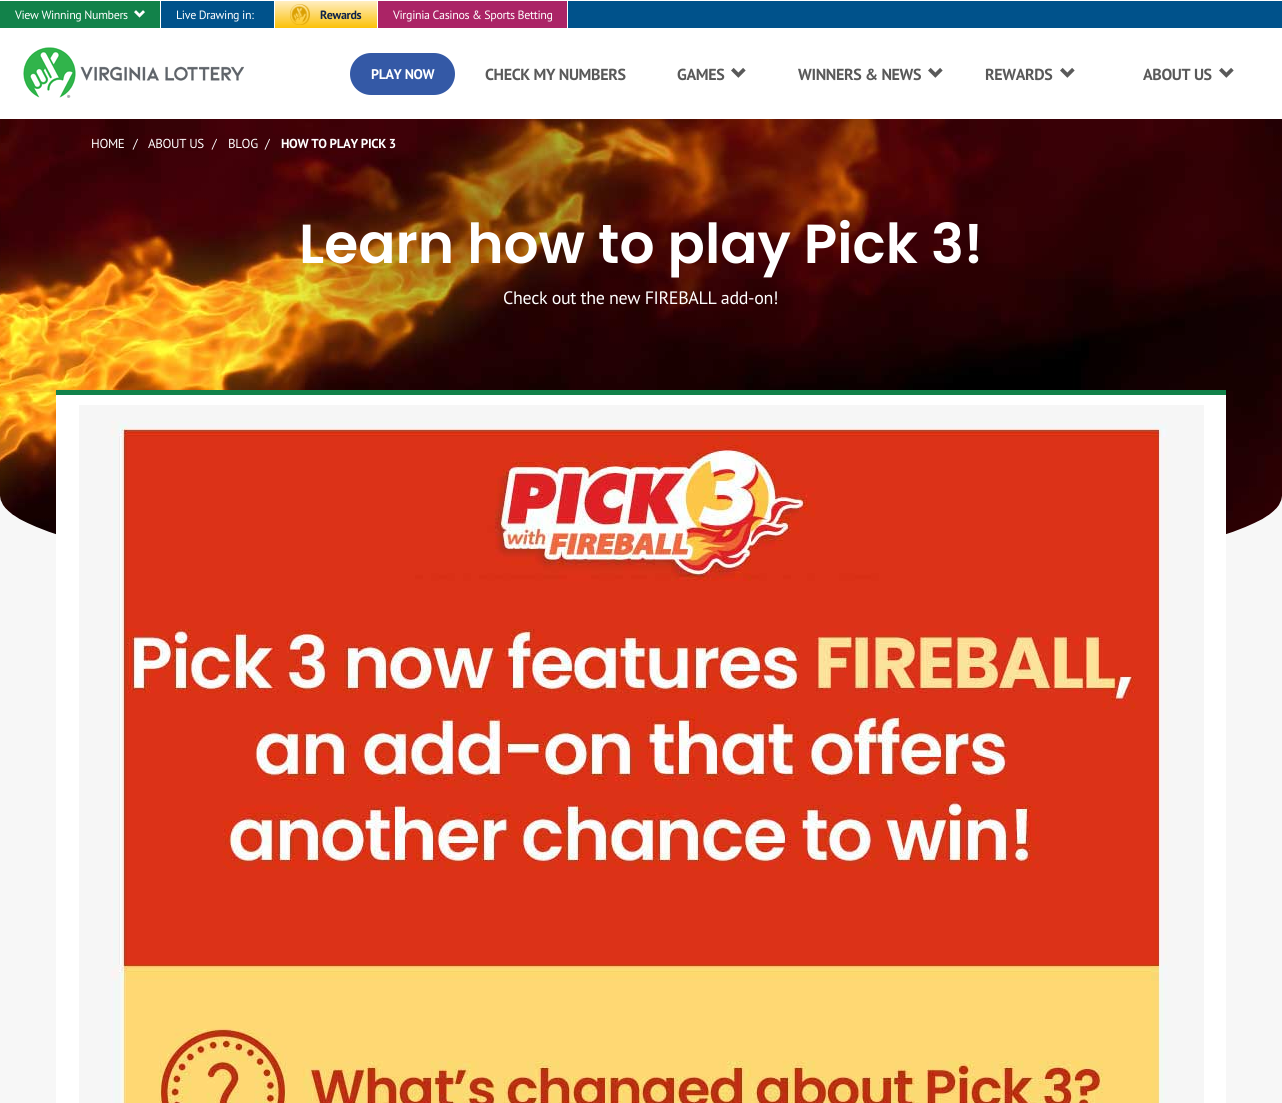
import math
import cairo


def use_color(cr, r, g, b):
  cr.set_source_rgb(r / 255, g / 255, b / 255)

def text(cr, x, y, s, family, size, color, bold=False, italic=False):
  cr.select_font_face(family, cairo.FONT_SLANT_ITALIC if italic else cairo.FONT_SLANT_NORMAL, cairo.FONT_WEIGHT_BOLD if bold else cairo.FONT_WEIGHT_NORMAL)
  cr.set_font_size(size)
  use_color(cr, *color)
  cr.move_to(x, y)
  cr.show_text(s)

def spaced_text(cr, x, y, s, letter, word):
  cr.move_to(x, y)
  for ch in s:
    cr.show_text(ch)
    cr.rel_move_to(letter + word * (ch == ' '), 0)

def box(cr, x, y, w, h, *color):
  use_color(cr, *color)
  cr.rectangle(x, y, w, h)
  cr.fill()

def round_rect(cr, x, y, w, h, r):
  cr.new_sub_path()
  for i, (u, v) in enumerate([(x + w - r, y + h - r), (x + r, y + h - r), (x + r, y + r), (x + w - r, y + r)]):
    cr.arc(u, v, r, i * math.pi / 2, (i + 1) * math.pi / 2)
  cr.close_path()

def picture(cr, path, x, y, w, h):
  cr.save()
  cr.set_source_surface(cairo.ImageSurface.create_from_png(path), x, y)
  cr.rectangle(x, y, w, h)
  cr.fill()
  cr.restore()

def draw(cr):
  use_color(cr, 247, 247, 247)
  cr.paint()
  box(cr, 0, 0, 1282, 119, 255, 255, 255)
  box(cr, 0, 1, 160, 27, 18, 130, 74)
  picture(cr, "img_01.png", 134, 10, 11, 8)
  box(cr, 161, 1, 113, 27, 0, 82, 139)
  gradient = cairo.LinearGradient(326, 1, 326, 28)
  gradient.add_color_stop_rgba(0, 1, 0.933, 0.761, 1)
  gradient.add_color_stop_rgba(1, 0.988, 0.757, 0.031, 1)
  cr.set_source(gradient)
  cr.rectangle(275, 1, 102, 27)
  cr.fill()
  picture(cr, "img_02.png", 290, 4, 20, 21)
  box(cr, 378, 1, 189, 27, 171, 36, 102)
  box(cr, 568, 1, 714, 27, 0, 82, 139)
  picture(cr, "img_03.png", 23, 47, 221, 51)
  use_color(cr, 52, 89, 166)
  round_rect(cr, 350, 53, 105, 42, 21)
  cr.fill()
  picture(cr, "img_04.png", 731, 67, 15, 11)
  picture(cr, "img_04.png", 928, 67, 15, 11)
  picture(cr, "img_04.png", 1060, 67, 15, 11)
  picture(cr, "img_04.png", 1219, 67, 15, 11)
  picture(cr, "img_05.png", 0, 119, 1282, 416)
  box(cr, 56, 395, 1170, 708, 255, 255, 255)
  box(cr, 56, 390, 1170, 5, 18, 130, 74)
  picture(cr, "img_06.png", 79, 405, 1125, 698)
  cr.select_font_face("PT Sans")
  cr.set_font_size(12)
  use_color(cr, 255, 255, 255)
  spaced_text(cr, 15, 19, "View Winning Numbers", -0.35, 0)
  spaced_text(cr, 176, 19, "Live Drawing in:", -0.35, 0)
  cr.select_font_face("PT Sans", cairo.FONT_SLANT_NORMAL, cairo.FONT_WEIGHT_BOLD)
  use_color(cr, 14, 34, 72)
  spaced_text(cr, 320, 19, "Rewards", -0.35, 0)
  cr.select_font_face("PT Sans")
  use_color(cr, 255, 255, 255)
  spaced_text(cr, 393, 19, "Virginia Casinos & Sports Betting", -0.35, 0)
  cr.select_font_face("PT Sans", cairo.FONT_SLANT_NORMAL, cairo.FONT_WEIGHT_BOLD)
  cr.set_font_size(14)
  spaced_text(cr, 371, 79, "PLAY NOW", -0.35, 0)
  cr.set_font_size(16)
  use_color(cr, 89, 89, 89)
  spaced_text(cr, 485, 80, "CHECK MY NUMBERS", -0.35, 0)
  spaced_text(cr, 677, 80, "GAMES", -0.35, 0)
  spaced_text(cr, 798, 80, "WINNERS & NEWS", -0.35, 0)
  spaced_text(cr, 985, 80, "REWARDS", -0.35, 0)
  spaced_text(cr, 1143, 80, "ABOUT US", -0.35, 0)
  cr.select_font_face("PT Sans")
  cr.set_font_size(13)
  use_color(cr, 255, 255, 255)
  spaced_text(cr, 91, 148, "HOME", -0.35, 0)
  spaced_text(cr, 133, 148, "/", -0.35, 0)
  spaced_text(cr, 148, 148, "ABOUT US", -0.35, 0)
  spaced_text(cr, 212, 148, "/", -0.35, 0)
  spaced_text(cr, 228, 148, "BLOG", -0.35, 0)
  spaced_text(cr, 265, 148, "/", -0.35, 0)
  cr.select_font_face("PT Sans", cairo.FONT_SLANT_NORMAL, cairo.FONT_WEIGHT_BOLD)
  spaced_text(cr, 281, 148, "HOW TO PLAY PICK 3", -0.35, 0)
  text(cr, 299, 263, "Learn how to play Pick 3!", "Poppins SemiBold", 55, (255, 255, 255))
  cr.select_font_face("PT Sans")
  cr.set_font_size(18)
  spaced_text(cr, 503, 304, "Check out the new FIREBALL add-on!", -0.35, 0)


surface = cairo.ImageSurface(cairo.FORMAT_RGB24, 1282, 1103)
cr = cairo.Context(surface)
options = cairo.FontOptions()
options.set_hint_metrics(cairo.HINT_METRICS_OFF)
options.set_hint_style(cairo.HINT_STYLE_NONE)
cr.set_font_options(options)
cr.set_miter_limit(4)
draw(cr)
surface.write_to_png("out.png")
